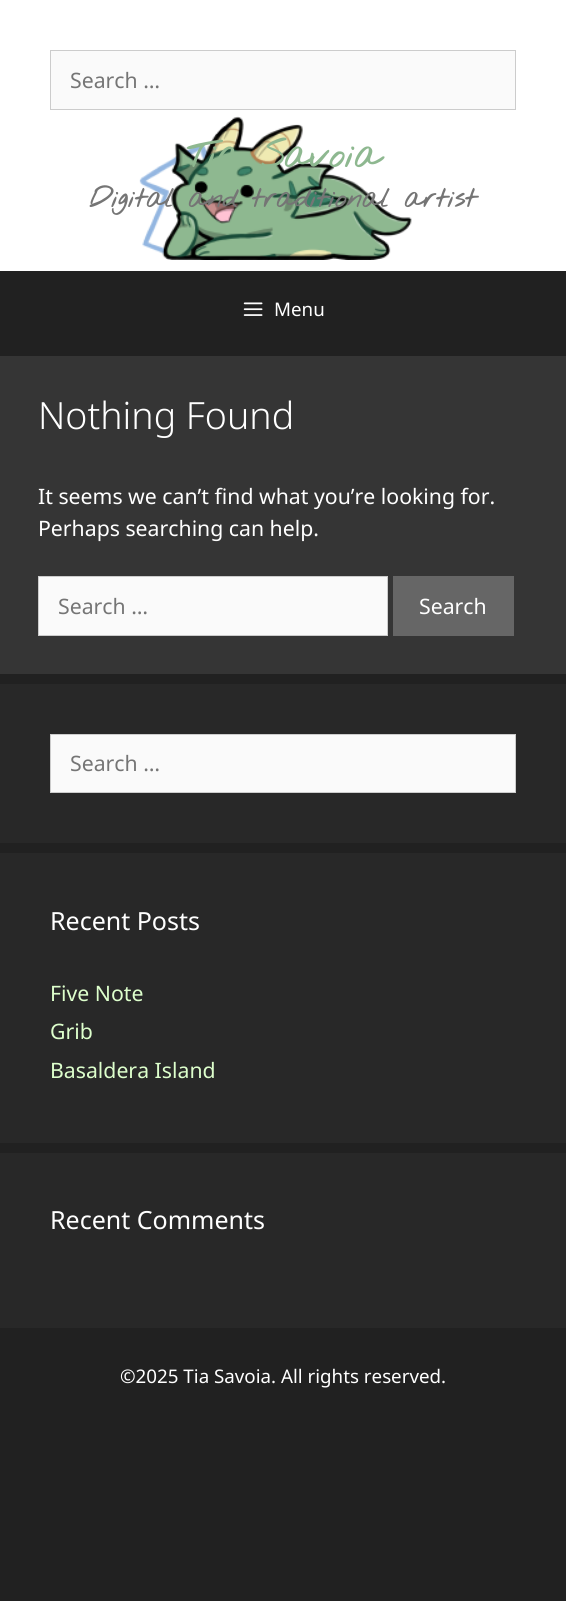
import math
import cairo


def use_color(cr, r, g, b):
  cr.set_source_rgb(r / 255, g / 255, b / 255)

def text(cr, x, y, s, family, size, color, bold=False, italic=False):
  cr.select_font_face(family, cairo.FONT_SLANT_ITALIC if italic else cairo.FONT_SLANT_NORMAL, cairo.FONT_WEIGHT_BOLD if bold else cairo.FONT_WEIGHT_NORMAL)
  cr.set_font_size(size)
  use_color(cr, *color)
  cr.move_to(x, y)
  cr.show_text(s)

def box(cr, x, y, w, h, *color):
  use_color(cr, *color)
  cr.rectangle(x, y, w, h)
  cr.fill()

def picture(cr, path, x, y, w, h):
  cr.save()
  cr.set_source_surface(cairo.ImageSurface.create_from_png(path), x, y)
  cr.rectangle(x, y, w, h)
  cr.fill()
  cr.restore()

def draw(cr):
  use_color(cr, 33, 33, 33)
  cr.paint()
  box(cr, 0, 0, 566, 271, 255, 255, 255)
  picture(cr, "img_01.png", 139, 116, 273, 144)
  use_color(cr, 250, 250, 250)
  cr.rectangle(50.5, 50.5, 465, 59)
  cr.fill_preserve()
  use_color(cr, 204, 204, 204)
  cr.set_line_width(1)
  cr.stroke()
  picture(cr, "img_02.png", 243, 302, 20, 14)
  box(cr, 0, 356, 566, 318, 53, 53, 53)
  use_color(cr, 250, 250, 250)
  cr.rectangle(38.5, 576.5, 349, 59)
  cr.fill_preserve()
  use_color(cr, 204, 204, 204)
  cr.stroke()
  box(cr, 393, 576, 121, 60, 102, 102, 102)
  box(cr, 0, 684, 566, 159, 40, 40, 40)
  use_color(cr, 250, 250, 250)
  cr.rectangle(50.5, 734.5, 465, 58)
  cr.fill_preserve()
  use_color(cr, 204, 204, 204)
  cr.stroke()
  box(cr, 0, 853, 566, 290, 40, 40, 40)
  box(cr, 0, 1153, 566, 175, 40, 40, 40)
  text(cr, 70, 88, "Search …", "Noto Sans", 21.25, (117, 117, 117))
  text(cr, 186, 167, "Tia Savoia", "Nothing You Could Do", 37.5, (142, 184, 144), bold=True)
  text(cr, 89, 207, "Digital and traditional artist", "Nothing You Could Do", 27.5, (117, 117, 117), bold=True)
  text(cr, 274, 316, "Menu", "Noto Sans", 18.75, (255, 255, 255))
  text(cr, 38, 429, "Nothing Found", "Noto Sans Light", 37.5, (255, 255, 255))
  text(cr, 38, 504, "It seems we can’t find what you’re looking for.", "Noto Sans", 21.25, (255, 255, 255))
  text(cr, 38, 536, "Perhaps searching can help.", "Noto Sans", 21.25, (255, 255, 255))
  text(cr, 58, 614, "Search …", "Noto Sans", 21.25, (117, 117, 117))
  text(cr, 419, 614, "Search", "Noto Sans", 21.25, (255, 255, 255))
  text(cr, 70, 771, "Search …", "Noto Sans", 21.25, (117, 117, 117))
  text(cr, 50, 930, "Recent Posts", "Noto Sans", 25, (255, 255, 255))
  text(cr, 50, 1001, "Five Note", "Noto Sans", 21.25, (221, 255, 204))
  text(cr, 50, 1039, "Grib", "Noto Sans", 21.25, (221, 255, 204))
  text(cr, 50, 1078, "Basaldera Island", "Noto Sans", 21.25, (221, 255, 204))
  text(cr, 50, 1229, "Recent Comments", "Noto Sans", 25, (255, 255, 255))
  text(cr, 120, 1383, "©2025 Tia Savoia. All rights reserved.", "Noto Sans", 18.75, (255, 255, 255))


surface = cairo.ImageSurface(cairo.FORMAT_RGB24, 566, 1601)
cr = cairo.Context(surface)
options = cairo.FontOptions()
options.set_hint_metrics(cairo.HINT_METRICS_OFF)
options.set_hint_style(cairo.HINT_STYLE_NONE)
cr.set_font_options(options)
cr.set_miter_limit(4)
draw(cr)
surface.write_to_png("out.png")
